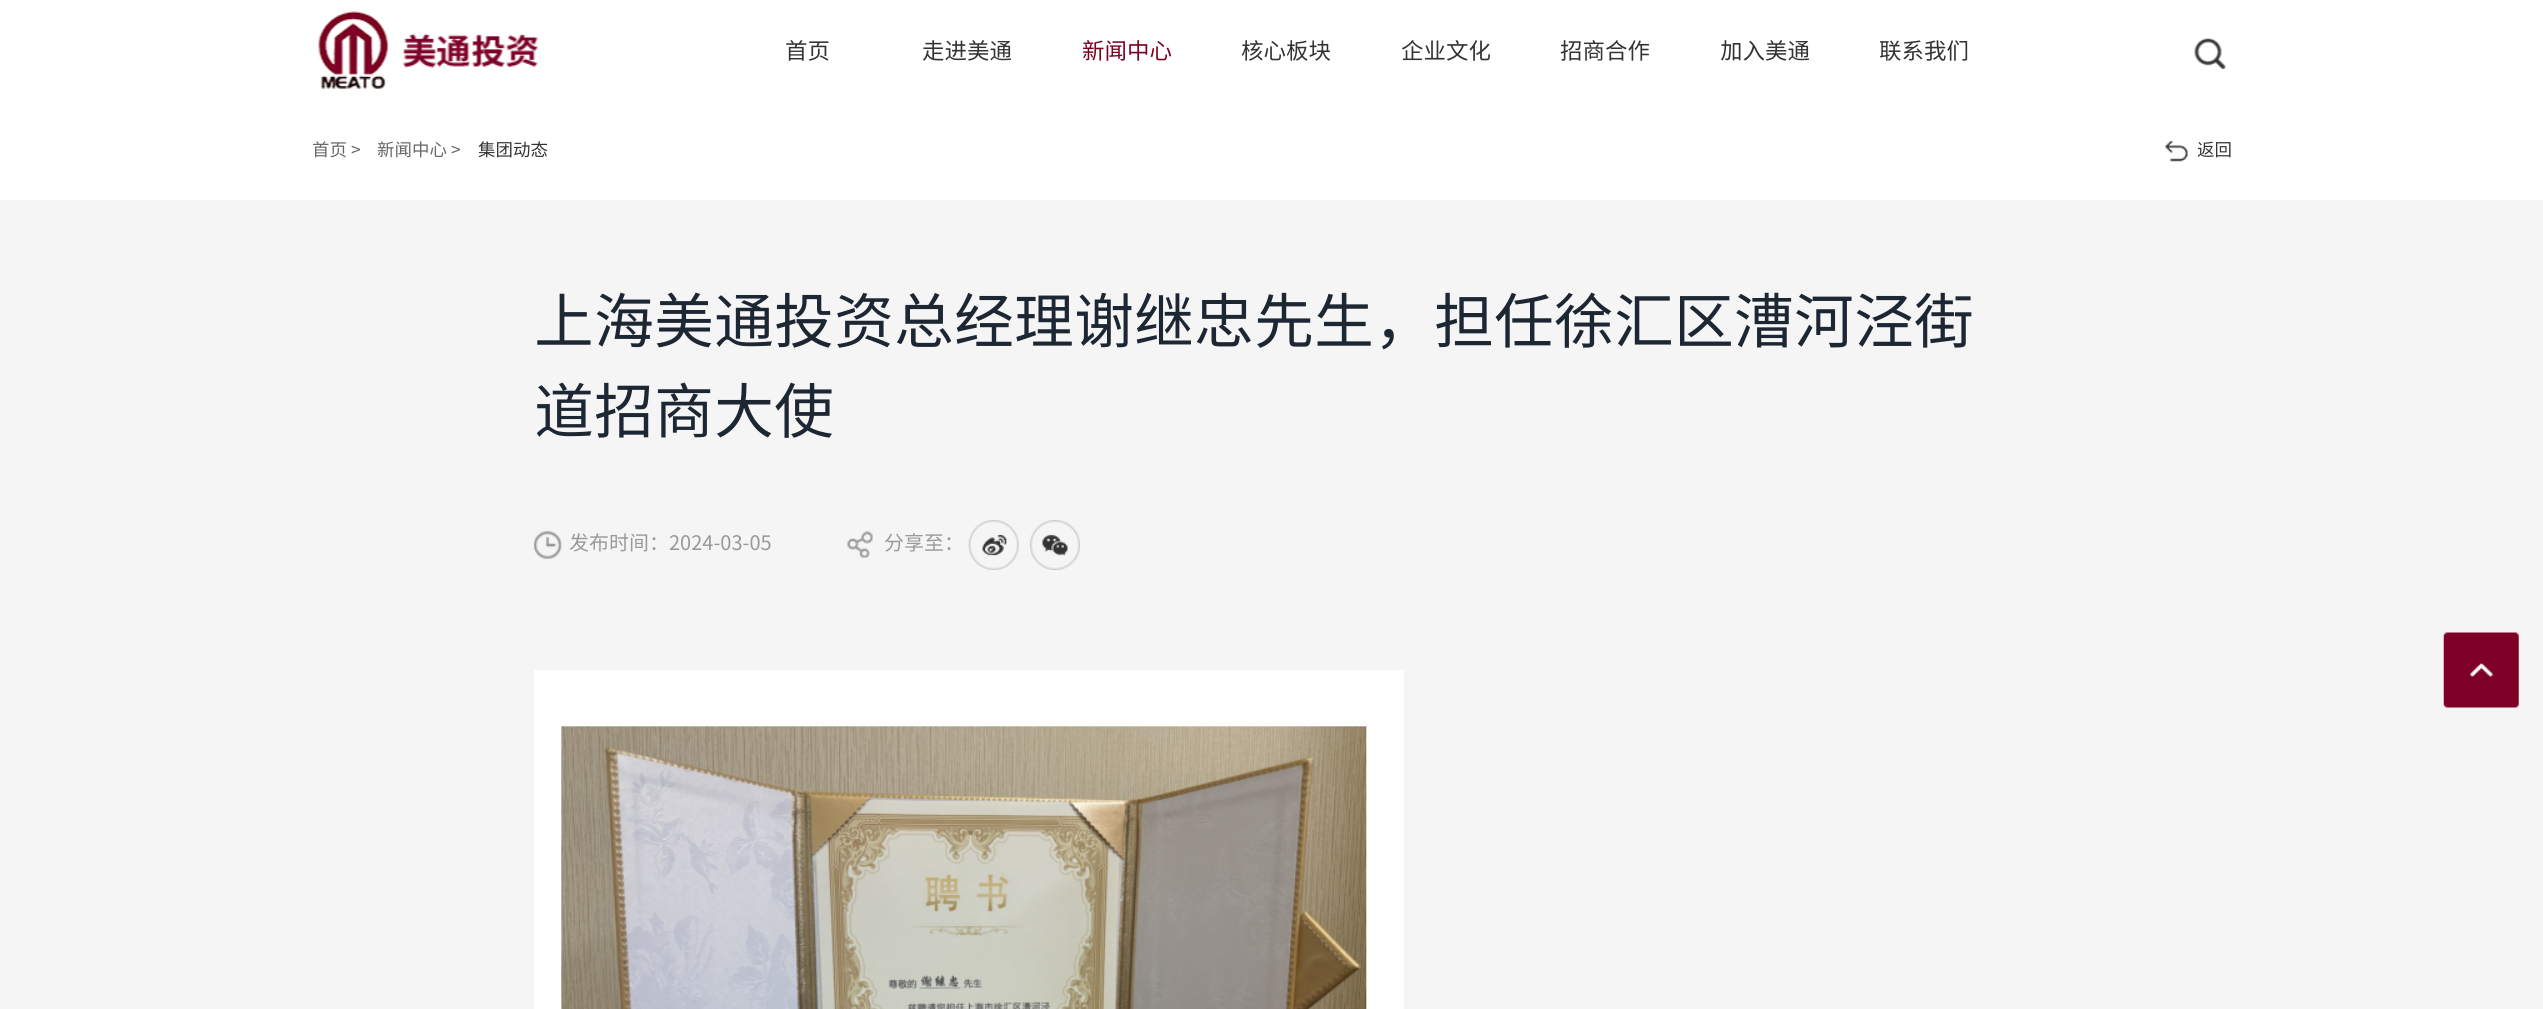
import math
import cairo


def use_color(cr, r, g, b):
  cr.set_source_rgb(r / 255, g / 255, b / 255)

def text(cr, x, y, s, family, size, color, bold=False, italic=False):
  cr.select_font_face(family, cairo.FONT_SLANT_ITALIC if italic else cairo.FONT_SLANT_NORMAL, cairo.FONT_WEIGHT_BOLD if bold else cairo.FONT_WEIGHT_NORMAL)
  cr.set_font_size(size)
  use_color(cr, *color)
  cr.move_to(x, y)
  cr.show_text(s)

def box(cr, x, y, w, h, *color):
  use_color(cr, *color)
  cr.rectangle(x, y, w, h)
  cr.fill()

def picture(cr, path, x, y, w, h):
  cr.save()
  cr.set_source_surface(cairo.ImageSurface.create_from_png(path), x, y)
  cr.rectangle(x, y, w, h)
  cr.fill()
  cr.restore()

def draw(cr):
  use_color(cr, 255, 255, 255)
  cr.paint()
  picture(cr, "img_01.png", 318, 11, 221, 78)
  picture(cr, "img_02.png", 2194, 38, 32, 31)
  picture(cr, "img_03.png", 2165, 141, 23, 21)
  box(cr, 0, 200, 2543, 809, 245, 245, 245)
  picture(cr, "img_04.png", 533, 531, 29, 28)
  picture(cr, "img_05.png", 847, 531, 26, 27)
  picture(cr, "img_06.png", 968, 520, 51, 50)
  picture(cr, "img_07.png", 1030, 520, 50, 50)
  picture(cr, "img_08.png", 534, 670, 870, 339)
  picture(cr, "img_09.png", 2443, 632, 76, 76)
  text(cr, 785, 59, "首页", "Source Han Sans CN", 22.5, (51, 51, 51))
  text(cr, 922, 59, "走进美通", "Source Han Sans CN", 22.5, (51, 51, 51))
  text(cr, 1082, 59, "新闻中心", "Source Han Sans CN", 22.5, (124, 0, 31))
  text(cr, 1241, 59, "核心板块", "Source Han Sans CN", 22.5, (51, 51, 51))
  text(cr, 1401, 59, "企业文化", "Source Han Sans CN", 22.5, (51, 51, 51))
  text(cr, 1560, 59, "招商合作", "Source Han Sans CN", 22.5, (51, 51, 51))
  text(cr, 1720, 59, "加入美通", "Source Han Sans CN", 22.5, (51, 51, 51))
  text(cr, 1879, 59, "联系我们", "Source Han Sans CN", 22.5, (51, 51, 51))
  text(cr, 312, 156, "首页 >", "Source Han Sans CN", 17.5, (102, 102, 102))
  text(cr, 377, 156, "新闻中心 >", "Source Han Sans CN", 17.5, (102, 102, 102))
  text(cr, 478, 156, "集团动态", "Source Han Sans CN", 17.5, (51, 51, 51))
  text(cr, 2197, 156, "返回", "Source Han Sans CN", 17.5, (51, 51, 51))
  text(cr, 534, 343, "上海美通投资总经理谢继忠先生，担任徐汇区漕河泾街", "Source Han Sans CN", 60, (29, 38, 51))
  text(cr, 534, 433, "道招商大使", "Source Han Sans CN", 60, (29, 38, 51))
  text(cr, 569, 550, "发布时间：2024-03-05", "Source Han Sans CN", 20, (153, 153, 153))
  text(cr, 884, 550, "分享至：", "Source Han Sans CN", 20, (153, 153, 153))


surface = cairo.ImageSurface(cairo.FORMAT_RGB24, 2543, 1009)
cr = cairo.Context(surface)
options = cairo.FontOptions()
options.set_hint_metrics(cairo.HINT_METRICS_OFF)
options.set_hint_style(cairo.HINT_STYLE_NONE)
cr.set_font_options(options)
cr.set_miter_limit(4)
draw(cr)
surface.write_to_png("out.png")
